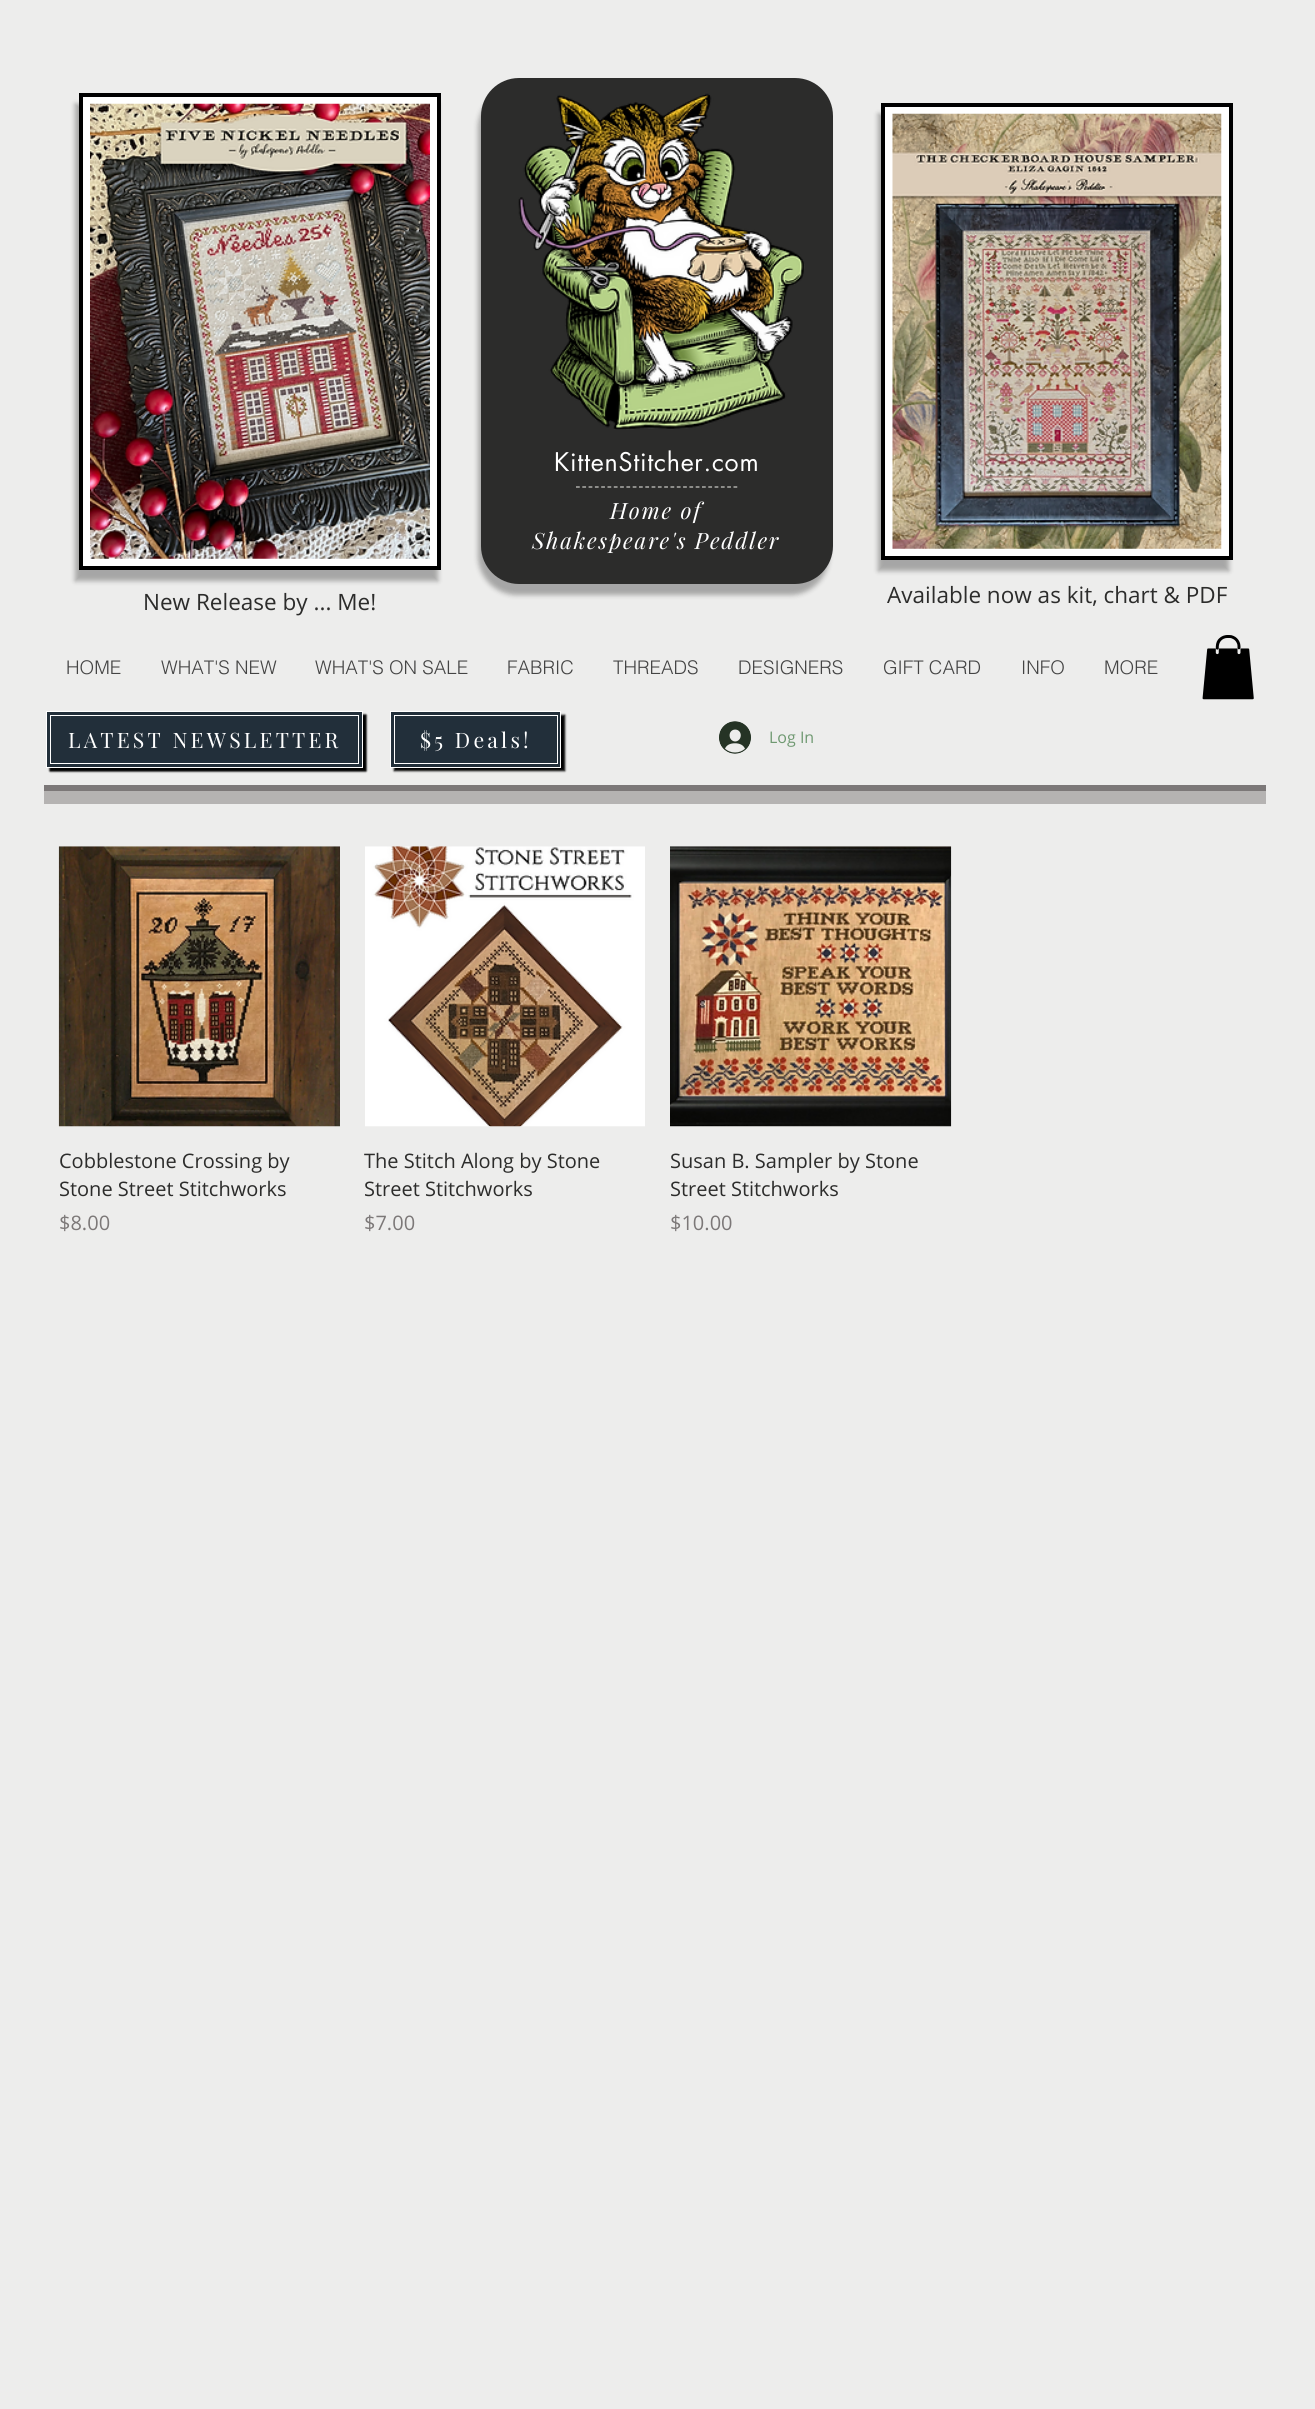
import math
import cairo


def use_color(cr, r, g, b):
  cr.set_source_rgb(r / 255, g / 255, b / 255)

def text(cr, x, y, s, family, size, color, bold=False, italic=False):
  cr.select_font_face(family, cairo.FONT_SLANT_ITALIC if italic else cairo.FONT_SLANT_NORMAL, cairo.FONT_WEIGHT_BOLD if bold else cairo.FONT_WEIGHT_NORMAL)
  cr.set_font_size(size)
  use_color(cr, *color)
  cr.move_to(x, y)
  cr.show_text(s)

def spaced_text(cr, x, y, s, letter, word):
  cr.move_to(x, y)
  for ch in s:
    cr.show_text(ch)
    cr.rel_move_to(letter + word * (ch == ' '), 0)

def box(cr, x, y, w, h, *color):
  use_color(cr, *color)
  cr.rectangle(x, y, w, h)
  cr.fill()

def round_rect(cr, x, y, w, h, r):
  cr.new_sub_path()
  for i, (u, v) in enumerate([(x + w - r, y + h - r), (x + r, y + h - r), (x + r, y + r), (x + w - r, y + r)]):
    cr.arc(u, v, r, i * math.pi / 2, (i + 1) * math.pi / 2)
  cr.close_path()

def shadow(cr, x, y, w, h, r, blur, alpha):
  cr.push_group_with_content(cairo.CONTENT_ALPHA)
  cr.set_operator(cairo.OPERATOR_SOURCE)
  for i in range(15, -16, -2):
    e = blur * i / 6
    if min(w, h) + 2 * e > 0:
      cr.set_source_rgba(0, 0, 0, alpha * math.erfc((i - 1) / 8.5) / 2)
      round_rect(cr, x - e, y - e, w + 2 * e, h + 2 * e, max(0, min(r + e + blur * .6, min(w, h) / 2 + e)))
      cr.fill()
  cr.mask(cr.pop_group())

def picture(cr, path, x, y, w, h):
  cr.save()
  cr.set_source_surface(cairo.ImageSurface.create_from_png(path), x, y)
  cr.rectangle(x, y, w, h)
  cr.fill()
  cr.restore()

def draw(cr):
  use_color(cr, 237, 237, 236)
  cr.paint()
  use_color(cr, 0, 0, 0)
  shadow(cr, 75, 104, 363, 477, 0, 2.5, 0.3)
  use_color(cr, 255, 255, 255)
  cr.rectangle(81, 95, 358, 473)
  cr.fill_preserve()
  use_color(cr, 0, 0, 0)
  cr.set_line_width(4)
  cr.stroke()
  picture(cr, "img_01.png", 90, 103, 340, 456)
  use_color(cr, 0, 0, 0)
  shadow(cr, 478, 89, 351, 506, 38, 2.5, 0.3)
  use_color(cr, 44, 44, 43)
  round_rect(cr, 481, 78, 352, 506, 38)
  cr.fill()
  picture(cr, "img_02.png", 518, 93, 287, 337)
  cr.new_path()
  cr.move_to(576, 487)
  cr.line_to(737.5, 487)
  use_color(cr, 205, 205, 201)
  cr.set_line_width(1.2)
  cr.set_dash([3.75, 2.55])
  cr.stroke()
  use_color(cr, 0, 0, 0)
  shadow(cr, 878, 114, 351, 457, 0, 2.5, 0.3)
  use_color(cr, 255, 255, 255)
  cr.rectangle(883, 105, 348, 453)
  cr.fill_preserve()
  use_color(cr, 0, 0, 0)
  cr.set_line_width(4)
  cr.set_dash([])
  cr.stroke()
  picture(cr, "img_03.png", 892, 113, 330, 436)
  picture(cr, "img_04.png", 1202, 635, 52, 65)
  use_color(cr, 0, 0, 0)
  shadow(cr, 50, 715, 316, 56, 0, 1, 1)
  shadow(cr, 50, 715, 316, 56, 0, 1, 1)
  use_color(cr, 34, 47, 58)
  cr.rectangle(46.5, 711.5, 316, 56)
  cr.fill_preserve()
  use_color(cr, 255, 255, 255)
  cr.set_line_width(1)
  cr.stroke()
  cr.rectangle(50.5, 715.5, 308, 48)
  cr.stroke()
  use_color(cr, 0, 0, 0)
  shadow(cr, 394, 715, 171, 56, 0, 1, 1)
  use_color(cr, 34, 47, 58)
  cr.rectangle(390.5, 711.5, 170, 56)
  cr.fill_preserve()
  use_color(cr, 255, 255, 255)
  cr.stroke()
  cr.rectangle(394.5, 715.5, 163, 48)
  cr.stroke()
  picture(cr, "img_05.png", 719, 721, 32, 33)
  box(cr, 44, 785, 1222, 6, 124, 120, 120)
  box(cr, 44, 791, 1222, 13, 181, 179, 178)
  picture(cr, "img_06.png", 58, 846, 282, 281)
  picture(cr, "img_07.png", 365, 846, 280, 281)
  picture(cr, "img_08.png", 670, 846, 282, 281)
  cr.select_font_face("futura")
  cr.set_font_size(25)
  use_color(cr, 255, 255, 255)
  spaced_text(cr, 554, 471, "KittenStitcher.com", 0.75, 0)
  cr.select_font_face("Playfair Display", cairo.FONT_SLANT_ITALIC)
  cr.set_font_size(22.5)
  spaced_text(cr, 610, 519, "Home of", 1.8, 0)
  spaced_text(cr, 532, 549, "Shakespeare's Peddler", 1.8, 0)
  text(cr, 143, 610, "New Release by ... Me!", "Open Sans", 22.5, (44, 44, 43))
  text(cr, 887, 603, "Available now as kit, chart & PDF", "Open Sans", 22.5, (44, 44, 43))
  text(cr, 66, 674, "HOME", "helvetica Light", 18.75, (68, 68, 68))
  text(cr, 161, 674, "WHAT'S NEW", "helvetica Light", 18.75, (68, 68, 68))
  text(cr, 315, 674, "WHAT'S ON SALE", "helvetica Light", 18.75, (68, 68, 68))
  text(cr, 507, 674, "FABRIC", "helvetica Light", 18.75, (68, 68, 68))
  text(cr, 613, 674, "THREADS", "helvetica Light", 18.75, (68, 68, 68))
  text(cr, 738, 674, "DESIGNERS", "helvetica Light", 18.75, (68, 68, 68))
  text(cr, 883, 674, "GIFT CARD", "helvetica Light", 18.75, (68, 68, 68))
  text(cr, 1021, 674, "INFO", "helvetica Light", 18.75, (68, 68, 68))
  text(cr, 1104, 674, "MORE", "helvetica Light", 18.75, (68, 68, 68))
  cr.select_font_face("Playfair Display")
  cr.set_font_size(21.25)
  use_color(cr, 255, 255, 255)
  spaced_text(cr, 68, 748, "LATEST NEWSLETTER", 3.2, 0)
  spaced_text(cr, 420, 748, "$5 Deals!", 3.2, 0)
  text(cr, 769, 743, "Log In", "Open Sans", 16, (111, 153, 113))
  text(cr, 59, 1168, "Cobblestone Crossing by", "Open Sans", 20, (44, 44, 43))
  text(cr, 59, 1196, "Stone Street Stitchworks", "Open Sans", 20, (44, 44, 43))
  text(cr, 59, 1230, "$8.00", "Open Sans", 20, (124, 120, 120))
  text(cr, 364, 1168, "The Stitch Along by Stone", "Open Sans", 20, (44, 44, 43))
  text(cr, 364, 1196, "Street Stitchworks", "Open Sans", 20, (44, 44, 43))
  text(cr, 364, 1230, "$7.00", "Open Sans", 20, (124, 120, 120))
  text(cr, 670, 1168, "Susan B. Sampler by Stone", "Open Sans", 20, (44, 44, 43))
  text(cr, 670, 1196, "Street Stitchworks", "Open Sans", 20, (44, 44, 43))
  text(cr, 670, 1230, "$10.00", "Open Sans", 20, (124, 120, 120))


surface = cairo.ImageSurface(cairo.FORMAT_RGB24, 1315, 2409)
cr = cairo.Context(surface)
options = cairo.FontOptions()
options.set_hint_metrics(cairo.HINT_METRICS_OFF)
options.set_hint_style(cairo.HINT_STYLE_NONE)
cr.set_font_options(options)
cr.set_miter_limit(4)
draw(cr)
surface.write_to_png("out.png")
